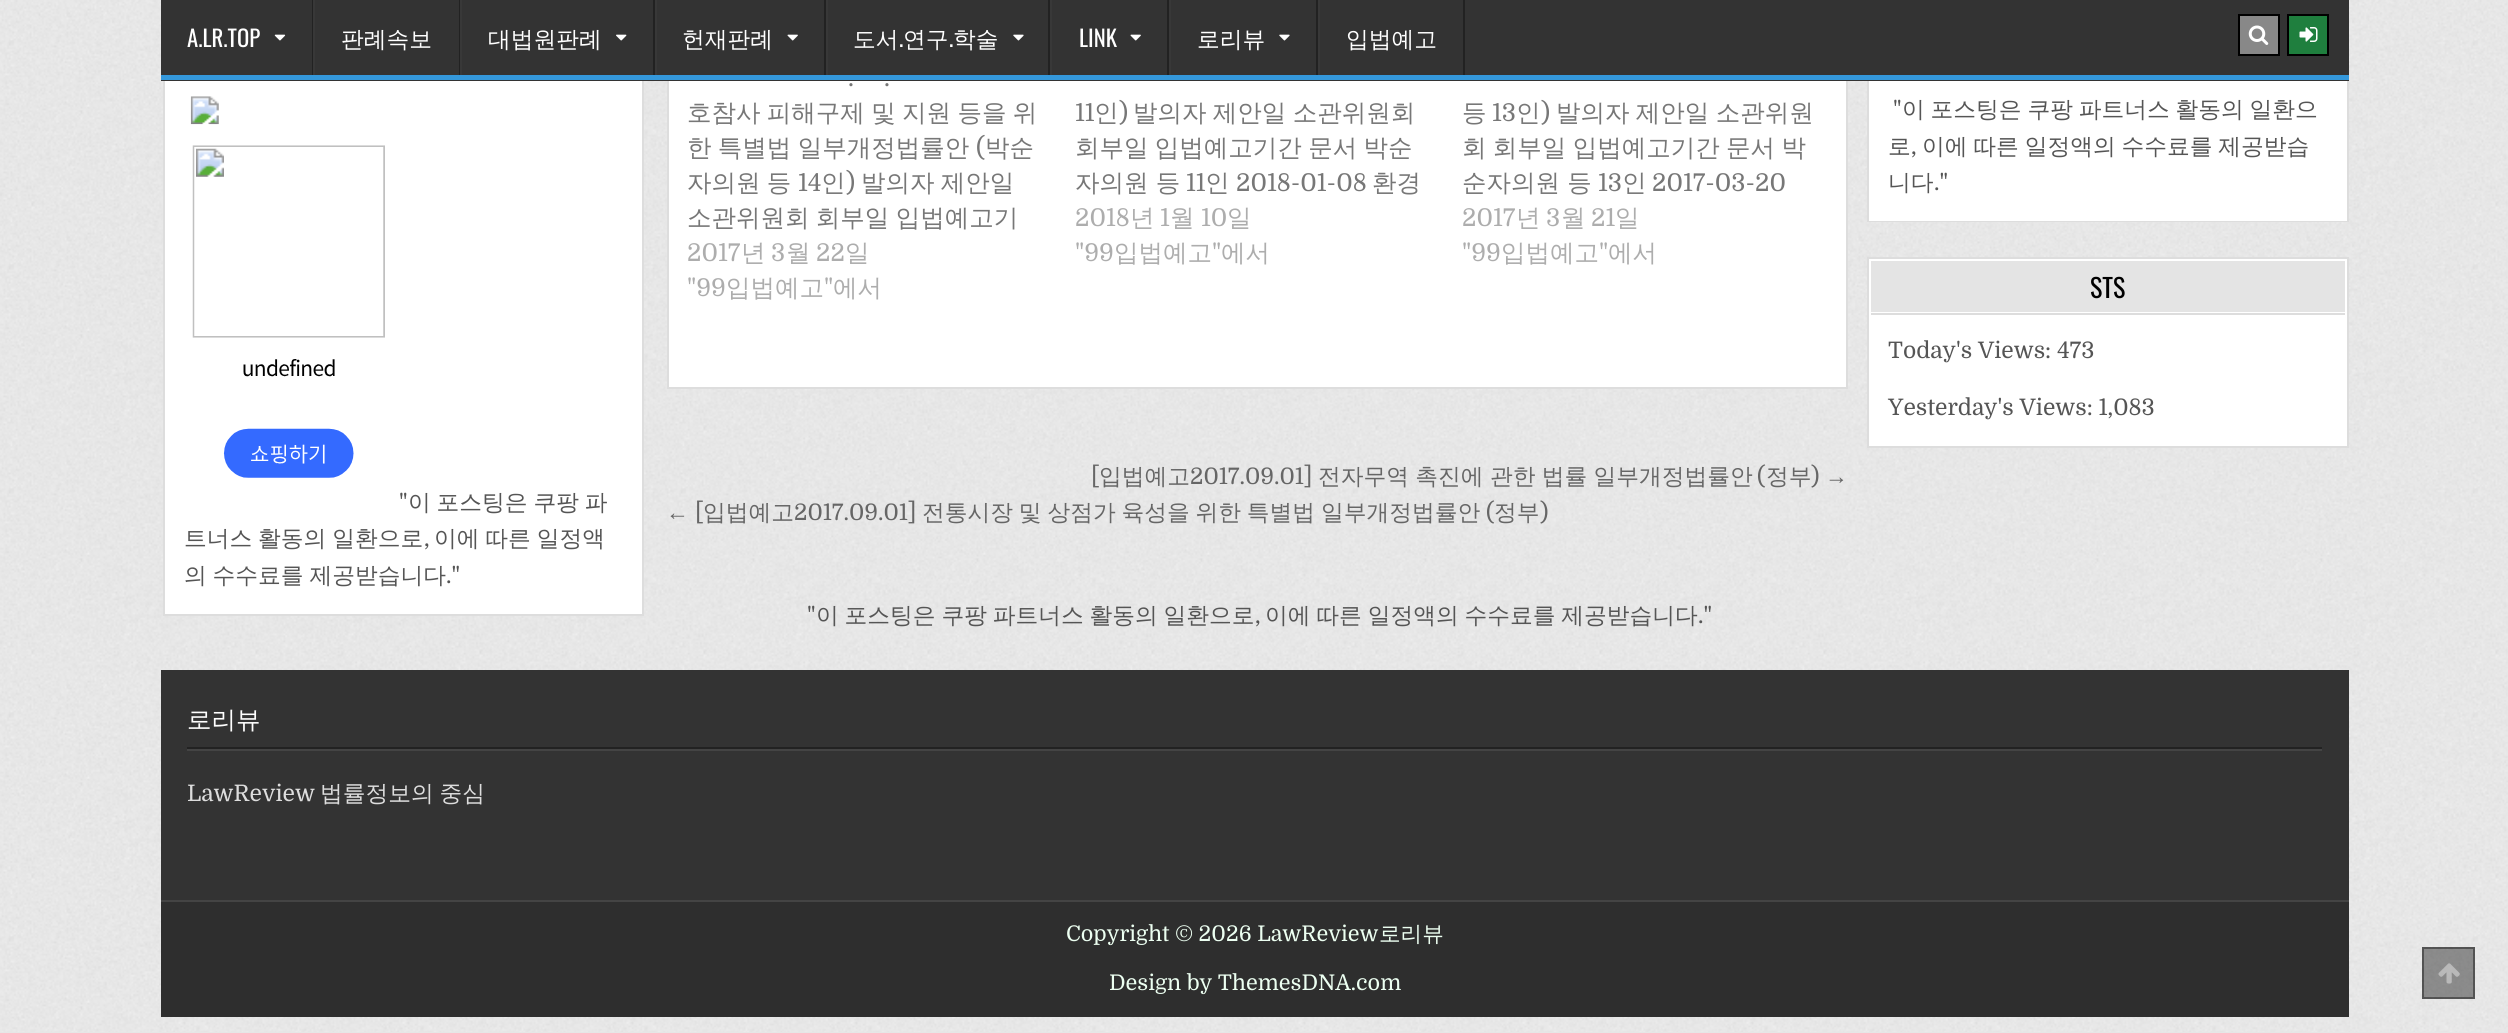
import math
import cairo


def use_color(cr, r, g, b):
  cr.set_source_rgb(r / 255, g / 255, b / 255)

def text(cr, x, y, s, family, size, color, bold=False, italic=False):
  cr.select_font_face(family, cairo.FONT_SLANT_ITALIC if italic else cairo.FONT_SLANT_NORMAL, cairo.FONT_WEIGHT_BOLD if bold else cairo.FONT_WEIGHT_NORMAL)
  cr.set_font_size(size)
  use_color(cr, *color)
  cr.move_to(x, y)
  cr.show_text(s)

def spaced_text(cr, x, y, s, letter, word):
  cr.move_to(x, y)
  for ch in s:
    cr.show_text(ch)
    cr.rel_move_to(letter + word * (ch == ' '), 0)

def box(cr, x, y, w, h, *color):
  use_color(cr, *color)
  cr.rectangle(x, y, w, h)
  cr.fill()

def picture(cr, path, x, y, w, h):
  cr.save()
  cr.set_source_surface(cairo.ImageSurface.create_from_png(path), x, y)
  cr.rectangle(x, y, w, h)
  cr.fill()
  cr.restore()

def draw(cr):
  use_color(cr, 230, 230, 230)
  cr.paint()
  picture(cr, "img_01.png", 0, 0, 2508, 1032)
  box(cr, 669, 81, 1177, 306, 255, 255, 255)
  cr.rectangle(668, -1, 1179, 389)
  use_color(cr, 221, 221, 221)
  cr.stroke()
  box(cr, 1871, 81, 474, 138, 255, 255, 255)
  cr.rectangle(1868, 19, 480, 202)
  use_color(cr, 221, 221, 221)
  cr.stroke()
  cr.rectangle(1870, 20, 476, 200)
  use_color(cr, 255, 255, 255)
  cr.stroke()
  box(cr, 165, 81, 477, 533, 255, 255, 255)
  cr.rectangle(164, 69, 479, 546)
  use_color(cr, 221, 221, 221)
  cr.stroke()
  box(cr, 161, 0, 2188, 81, 51, 51, 51)
  box(cr, 161, 75, 2188, 5, 52, 152, 219)
  box(cr, 312, 0, 1, 75, 34, 34, 34)
  picture(cr, "img_02.png", 274, 34, 12, 7)
  box(cr, 459, 0, 1, 75, 34, 34, 34)
  box(cr, 313, 0, 2, 75, 56, 56, 56)
  box(cr, 653, 0, 2, 75, 34, 34, 34)
  box(cr, 460, 0, 2, 75, 56, 56, 56)
  picture(cr, "img_03.png", 616, 34, 11, 7)
  box(cr, 824, 0, 2, 75, 34, 34, 34)
  box(cr, 655, 0, 2, 75, 56, 56, 56)
  picture(cr, "img_04.png", 787, 34, 11, 7)
  box(cr, 1048, 0, 2, 75, 34, 34, 34)
  box(cr, 826, 0, 2, 75, 56, 56, 56)
  picture(cr, "img_05.png", 1013, 34, 11, 7)
  box(cr, 1167, 0, 2, 75, 34, 34, 34)
  box(cr, 1050, 0, 2, 75, 56, 56, 56)
  picture(cr, "img_04.png", 1130, 34, 11, 7)
  box(cr, 1316, 0, 2, 75, 34, 34, 34)
  box(cr, 1169, 0, 2, 75, 56, 56, 56)
  picture(cr, "img_05.png", 1279, 34, 11, 7)
  box(cr, 1463, 0, 2, 75, 34, 34, 34)
  box(cr, 1318, 0, 2, 75, 56, 56, 56)
  use_color(cr, 136, 136, 136)
  cr.rectangle(2239, 15, 40, 40)
  cr.fill_preserve()
  use_color(cr, 0, 0, 0)
  cr.stroke()
  picture(cr, "img_06.png", 2248, 25, 21, 20)
  use_color(cr, 31, 127, 62)
  cr.rectangle(2288, 15, 40, 40)
  cr.fill_preserve()
  use_color(cr, 0, 0, 0)
  cr.stroke()
  picture(cr, "img_07.png", 2299, 27, 19, 15)
  use_color(cr, 255, 255, 255)
  cr.rectangle(1868, 258, 480, 189)
  cr.fill_preserve()
  use_color(cr, 221, 221, 221)
  cr.stroke()
  box(cr, 1871, 261, 474, 51, 228, 228, 228)
  box(cr, 1871, 313, 474, 2, 221, 221, 221)
  picture(cr, "img_08.png", 190, 96, 195, 382)
  box(cr, 161, 670, 2188, 230, 51, 51, 51)
  box(cr, 187, 749, 2135, 2, 68, 68, 68)
  box(cr, 187, 747, 2135, 2, 34, 34, 34)
  box(cr, 161, 902, 2188, 115, 46, 46, 46)
  box(cr, 161, 900, 2188, 2, 68, 68, 68)
  cr.set_source_rgba(0, 0, 0, 0.4)
  cr.rectangle(2422, 947, 53, 52)
  cr.fill()
  cr.rectangle(2423, 948, 51, 50)
  cr.stroke()
  picture(cr, "img_09.png", 2438, 963, 22, 21)
  text(cr, 187, 47, "A.LR.TOP", "Oswald", 22.75, (255, 255, 255))
  text(cr, 341, 47, "판례속보", "WenQuanYi Zen Hei Medium", 22.75, (255, 255, 255))
  text(cr, 488, 47, "대법원판례", "WenQuanYi Zen Hei Medium", 22.75, (255, 255, 255))
  text(cr, 682, 47, "헌재판례", "WenQuanYi Zen Hei Medium", 22.75, (255, 255, 255))
  text(cr, 853, 47, "도서", "WenQuanYi Zen Hei Medium", 22.75, (255, 255, 255))
  text(cr, 903, 47, "연구", "WenQuanYi Zen Hei Medium", 22.75, (255, 255, 255))
  text(cr, 953, 47, "학술", "WenQuanYi Zen Hei Medium", 22.75, (255, 255, 255))
  text(cr, 899, 47, ".", "Oswald", 22.75, (255, 255, 255))
  text(cr, 949, 47, ".", "Oswald", 22.75, (255, 255, 255))
  text(cr, 1079, 47, "LINK", "Oswald", 22.75, (255, 255, 255))
  text(cr, 1197, 47, "로리뷰", "WenQuanYi Zen Hei Medium", 22.75, (255, 255, 255))
  text(cr, 1346, 47, "입법예고", "WenQuanYi Zen Hei Medium", 22.75, (255, 255, 255))
  text(cr, 848, 86, ".", "Domine", 24.5, (119, 119, 119))
  text(cr, 884, 86, ".", "Domine", 24.5, (119, 119, 119))
  cr.select_font_face("WenQuanYi Zen Hei Medium")
  spaced_text(cr, 687, 121, "호참사 피해구제 및 지원 등을 위", 0, -1)
  spaced_text(cr, 687, 156, "한 특별법 일부개정법률안", 0, -1)
  text(cr, 976, 156, "(", "Domine", 24.5, (119, 119, 119))
  text(cr, 985, 156, "박순", "WenQuanYi Zen Hei Medium", 24.5, (119, 119, 119))
  spaced_text(cr, 687, 191, "자의원 등", 0, -1)
  text(cr, 798, 191, "14", "Domine", 24.5, (119, 119, 119))
  text(cr, 821, 191, "인", "WenQuanYi Zen Hei Medium", 24.5, (119, 119, 119))
  text(cr, 846, 191, ")", "Domine", 24.5, (119, 119, 119))
  cr.select_font_face("WenQuanYi Zen Hei Medium")
  spaced_text(cr, 861, 191, "발의자 제안일", 0, -1)
  spaced_text(cr, 687, 226, "소관위원회 회부일 입법예고기", 0, -1)
  text(cr, 687, 261, "2017", "Domine", 24.5, (173, 173, 173))
  text(cr, 741, 261, "년", "WenQuanYi Zen Hei Medium", 24.5, (173, 173, 173))
  text(cr, 771, 261, "3", "Domine", 24.5, (173, 173, 173))
  text(cr, 786, 261, "월", "WenQuanYi Zen Hei Medium", 24.5, (173, 173, 173))
  text(cr, 816, 261, "22", "Domine", 24.5, (173, 173, 173))
  text(cr, 845, 261, "일", "WenQuanYi Zen Hei Medium", 24.5, (173, 173, 173))
  text(cr, 687, 296, "\"99", "Domine", 24.5, (173, 173, 173))
  text(cr, 726, 296, "입법예고", "WenQuanYi Zen Hei Medium", 24.5, (173, 173, 173))
  text(cr, 824, 296, "\"", "Domine", 24.5, (173, 173, 173))
  text(cr, 833, 296, "에서", "WenQuanYi Zen Hei Medium", 24.5, (173, 173, 173))
  text(cr, 1075, 121, "11", "Domine", 24.5, (119, 119, 119))
  text(cr, 1094, 121, "인", "WenQuanYi Zen Hei Medium", 24.5, (119, 119, 119))
  text(cr, 1119, 121, ")", "Domine", 24.5, (119, 119, 119))
  cr.select_font_face("WenQuanYi Zen Hei Medium")
  spaced_text(cr, 1133, 121, "발의자 제안일 소관위원회", 0, -1)
  spaced_text(cr, 1075, 156, "회부일 입법예고기간 문서 박순", 0, -1)
  text(cr, 1075, 191, "자의원 등", "WenQuanYi Zen Hei Medium", 24.5, (119, 119, 119))
  text(cr, 1186, 191, "11", "Domine", 24.5, (119, 119, 119))
  text(cr, 1205, 191, "인", "WenQuanYi Zen Hei Medium", 24.5, (119, 119, 119))
  text(cr, 1236, 191, "2018-01-08", "Domine", 24.5, (119, 119, 119))
  text(cr, 1372, 191, "환경", "WenQuanYi Zen Hei Medium", 24.5, (119, 119, 119))
  text(cr, 1075, 226, "2018", "Domine", 24.5, (173, 173, 173))
  text(cr, 1130, 226, "년", "WenQuanYi Zen Hei Medium", 24.5, (173, 173, 173))
  text(cr, 1160, 226, "1", "Domine", 24.5, (173, 173, 173))
  text(cr, 1170, 226, "월", "WenQuanYi Zen Hei Medium", 24.5, (173, 173, 173))
  text(cr, 1201, 226, "10", "Domine", 24.5, (173, 173, 173))
  text(cr, 1227, 226, "일", "WenQuanYi Zen Hei Medium", 24.5, (173, 173, 173))
  text(cr, 1075, 261, "\"99", "Domine", 24.5, (173, 173, 173))
  text(cr, 1114, 261, "입법예고", "WenQuanYi Zen Hei Medium", 24.5, (173, 173, 173))
  text(cr, 1212, 261, "\"", "Domine", 24.5, (173, 173, 173))
  text(cr, 1221, 261, "에서", "WenQuanYi Zen Hei Medium", 24.5, (173, 173, 173))
  text(cr, 1462, 121, "등", "WenQuanYi Zen Hei Medium", 24.5, (119, 119, 119))
  text(cr, 1492, 121, "13", "Domine", 24.5, (119, 119, 119))
  text(cr, 1516, 121, "인", "WenQuanYi Zen Hei Medium", 24.5, (119, 119, 119))
  text(cr, 1541, 121, ")", "Domine", 24.5, (119, 119, 119))
  cr.select_font_face("WenQuanYi Zen Hei Medium")
  spaced_text(cr, 1556, 121, "발의자 제안일 소관위원", 0, -1)
  spaced_text(cr, 1462, 156, "회 회부일 입법예고기간 문서 박", 0, -1)
  text(cr, 1462, 191, "순자의원 등", "WenQuanYi Zen Hei Medium", 24.5, (119, 119, 119))
  text(cr, 1598, 191, "13", "Domine", 24.5, (119, 119, 119))
  text(cr, 1622, 191, "인", "WenQuanYi Zen Hei Medium", 24.5, (119, 119, 119))
  text(cr, 1652, 191, "2017-03-20", "Domine", 24.5, (119, 119, 119))
  text(cr, 1462, 226, "2017", "Domine", 24.5, (173, 173, 173))
  text(cr, 1516, 226, "년", "WenQuanYi Zen Hei Medium", 24.5, (173, 173, 173))
  text(cr, 1546, 226, "3", "Domine", 24.5, (173, 173, 173))
  text(cr, 1561, 226, "월", "WenQuanYi Zen Hei Medium", 24.5, (173, 173, 173))
  text(cr, 1591, 226, "21", "Domine", 24.5, (173, 173, 173))
  text(cr, 1615, 226, "일", "WenQuanYi Zen Hei Medium", 24.5, (173, 173, 173))
  text(cr, 1462, 261, "\"99", "Domine", 24.5, (173, 173, 173))
  text(cr, 1501, 261, "입법예고", "WenQuanYi Zen Hei Medium", 24.5, (173, 173, 173))
  text(cr, 1599, 261, "\"", "Domine", 24.5, (173, 173, 173))
  text(cr, 1608, 261, "에서", "WenQuanYi Zen Hei Medium", 24.5, (173, 173, 173))
  text(cr, 1091, 484, "[", "Domine", 22.75, (102, 102, 102))
  text(cr, 1099, 484, "입법예고", "WenQuanYi Zen Hei Medium", 22.75, (102, 102, 102))
  text(cr, 1190, 484, "2017.09.01]", "Domine", 22.75, (102, 102, 102))
  cr.select_font_face("WenQuanYi Zen Hei Medium")
  spaced_text(cr, 1318, 484, "전자무역 촉진에 관한 법률 일부개정법률안", 0, -0.5)
  text(cr, 1757, 484, "(", "Domine", 22.75, (102, 102, 102))
  text(cr, 1766, 484, "정부", "WenQuanYi Zen Hei Medium", 22.75, (102, 102, 102))
  text(cr, 1811, 484, ")", "Domine", 22.75, (102, 102, 102))
  text(cr, 1825, 484, "→", "Liberation Sans", 22.75, (102, 102, 102))
  text(cr, 666, 520, "←", "Liberation Sans", 22.75, (102, 102, 102))
  text(cr, 695, 520, "[", "Domine", 22.75, (102, 102, 102))
  text(cr, 703, 520, "입법예고", "WenQuanYi Zen Hei Medium", 22.75, (102, 102, 102))
  text(cr, 794, 520, "2017.09.01]", "Domine", 22.75, (102, 102, 102))
  cr.select_font_face("WenQuanYi Zen Hei Medium")
  spaced_text(cr, 922, 520, "전통시장 및 상점가 육성을 위한 특별법 일부개정법률안", 0, -1)
  text(cr, 1486, 520, "(", "Domine", 22.75, (102, 102, 102))
  text(cr, 1494, 520, "정부", "WenQuanYi Zen Hei Medium", 22.75, (102, 102, 102))
  text(cr, 1540, 520, ")", "Domine", 22.75, (102, 102, 102))
  text(cr, 807, 623, "\"", "Domine", 22.75, (85, 85, 85))
  cr.select_font_face("WenQuanYi Zen Hei Medium")
  spaced_text(cr, 816, 623, "이 포스팅은 쿠팡 파트너스 활동의 일환으로", 0, -1)
  text(cr, 1255, 623, ",", "Domine", 22.75, (85, 85, 85))
  cr.select_font_face("WenQuanYi Zen Hei Medium")
  spaced_text(cr, 1265, 623, "이에 따른 일정액의 수수료를 제공받습니다", 0, -1)
  text(cr, 1698, 623, ".\"", "Domine", 22.75, (85, 85, 85))
  text(cr, 1893, 117, "\"", "Domine", 22.75, (85, 85, 85))
  cr.select_font_face("WenQuanYi Zen Hei Medium")
  spaced_text(cr, 1902, 117, "이 포스팅은 쿠팡 파트너스 활동의 일환으", 0, -1)
  text(cr, 1888, 154, "로", "WenQuanYi Zen Hei Medium", 22.75, (85, 85, 85))
  text(cr, 1911, 154, ",", "Domine", 22.75, (85, 85, 85))
  cr.select_font_face("WenQuanYi Zen Hei Medium")
  spaced_text(cr, 1922, 154, "이에 따른 일정액의 수수료를 제공받습", 0, -1)
  text(cr, 1888, 190, "니다", "WenQuanYi Zen Hei Medium", 22.75, (85, 85, 85))
  text(cr, 1934, 190, ".\"", "Domine", 22.75, (85, 85, 85))
  text(cr, 2090, 298, "STS", "Oswald", 26, (0, 0, 0))
  text(cr, 1888, 358, "Today's Views: 473", "Domine", 22.75, (85, 85, 85))
  text(cr, 1888, 415, "Yesterday's Views: 1,083", "Domine", 22.75, (85, 85, 85))
  text(cr, 399, 510, "\"", "Domine", 22.75, (85, 85, 85))
  cr.select_font_face("WenQuanYi Zen Hei Medium")
  spaced_text(cr, 408, 510, "이 포스팅은 쿠팡 파", 0, -1)
  spaced_text(cr, 184, 546, "트너스 활동의 일환으로", 0, -1)
  text(cr, 424, 546, ",", "Domine", 22.75, (85, 85, 85))
  cr.select_font_face("WenQuanYi Zen Hei Medium")
  spaced_text(cr, 434, 546, "이에 따른 일정액", 0, -1)
  spaced_text(cr, 184, 583, "의 수수료를 제공받습니다", 0, -1)
  text(cr, 446, 583, ".\"", "Domine", 22.75, (85, 85, 85))
  text(cr, 187, 728, "로리뷰", "WenQuanYi Zen Hei Medium", 24.5, (255, 255, 255))
  text(cr, 187, 801, "LawReview", "Domine", 22.75, (221, 221, 221))
  cr.select_font_face("WenQuanYi Zen Hei Medium")
  spaced_text(cr, 320, 801, "법률정보의 중심", 0, -1)
  text(cr, 1066, 941, "Copyright © 2026 LawReview", "Domine", 21.6, (236, 255, 241))
  text(cr, 1379, 941, "로리뷰", "WenQuanYi Zen Hei Medium", 21.6, (236, 255, 241))
  text(cr, 1109, 990, "Design by ThemesDNA.com", "Domine", 21.6, (236, 255, 241))


surface = cairo.ImageSurface(cairo.FORMAT_RGB24, 2508, 1033)
cr = cairo.Context(surface)
options = cairo.FontOptions()
options.set_hint_metrics(cairo.HINT_METRICS_OFF)
options.set_hint_style(cairo.HINT_STYLE_NONE)
cr.set_font_options(options)
cr.set_miter_limit(4)
draw(cr)
surface.write_to_png("out.png")
